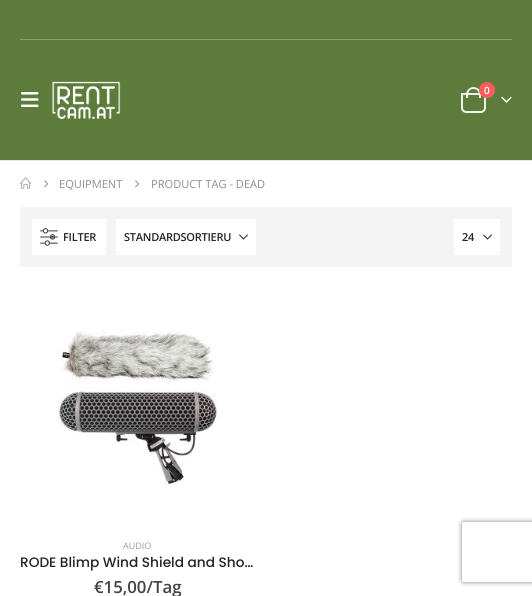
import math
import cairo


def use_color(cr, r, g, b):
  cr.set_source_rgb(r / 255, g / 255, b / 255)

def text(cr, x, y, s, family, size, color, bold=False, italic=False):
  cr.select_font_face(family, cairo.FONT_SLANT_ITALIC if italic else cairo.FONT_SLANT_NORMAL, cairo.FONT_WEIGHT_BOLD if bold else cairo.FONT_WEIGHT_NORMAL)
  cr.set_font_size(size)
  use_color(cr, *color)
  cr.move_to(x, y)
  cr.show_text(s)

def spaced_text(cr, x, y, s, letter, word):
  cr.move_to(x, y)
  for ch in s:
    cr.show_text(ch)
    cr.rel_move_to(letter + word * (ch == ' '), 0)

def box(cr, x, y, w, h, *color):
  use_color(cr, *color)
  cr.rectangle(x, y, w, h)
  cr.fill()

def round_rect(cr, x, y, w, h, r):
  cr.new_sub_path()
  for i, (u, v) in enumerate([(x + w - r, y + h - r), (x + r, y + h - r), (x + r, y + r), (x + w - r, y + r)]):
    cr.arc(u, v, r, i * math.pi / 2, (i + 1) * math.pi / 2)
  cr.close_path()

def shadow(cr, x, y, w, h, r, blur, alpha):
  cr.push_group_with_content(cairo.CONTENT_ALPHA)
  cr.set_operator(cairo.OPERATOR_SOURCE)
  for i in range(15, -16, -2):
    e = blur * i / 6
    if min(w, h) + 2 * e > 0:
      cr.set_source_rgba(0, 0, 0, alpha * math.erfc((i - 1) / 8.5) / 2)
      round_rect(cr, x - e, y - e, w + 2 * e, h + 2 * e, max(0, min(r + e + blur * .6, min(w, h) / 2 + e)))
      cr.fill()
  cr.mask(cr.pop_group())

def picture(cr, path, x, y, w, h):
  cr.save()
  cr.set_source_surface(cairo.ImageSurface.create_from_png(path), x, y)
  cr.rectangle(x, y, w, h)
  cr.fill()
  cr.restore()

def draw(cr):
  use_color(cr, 255, 255, 255)
  cr.paint()
  box(cr, 0, 160, 532, 1, 231, 231, 231)
  box(cr, 0, 0, 532, 160, 93, 123, 59)
  box(cr, 20, 39, 492, 1, 140, 159, 113)
  picture(cr, "img_01.png", 21, 92, 18, 15)
  picture(cr, "img_02.png", 52, 81, 69, 38)
  cr.new_path()
  cr.move_to(462, 94)
  cr.line_to(485, 94)
  cr.line_to(485, 108)
  cr.curve_to(485, 110, 483, 112, 481, 112)
  cr.line_to(466, 112)
  cr.curve_to(464, 112, 462, 110, 462, 108)
  cr.close_path()
  use_color(cr, 239, 242, 235)
  cr.stroke()
  cr.set_fill_rule(cairo.FILL_RULE_EVEN_ODD)
  cr.new_path()
  cr.move_to(473.5, 87)
  cr.curve_to(477.5, 87, 481, 90.5, 481, 94.5)
  cr.line_to(481, 98)
  cr.line_to(466, 98)
  cr.line_to(466, 94.5)
  cr.curve_to(466, 90.5, 469.5, 87, 473.5, 87)
  cr.close_path()
  cr.move_to(473.5, 89)
  cr.curve_to(479, 89, 479, 94, 479, 98)
  cr.line_to(468, 98)
  cr.curve_to(468, 94, 468, 89, 473.5, 89)
  cr.close_path()
  cr.fill()
  use_color(cr, 255, 91, 91)
  cr.arc(487, 90, 8, 0, 2 * math.pi)
  cr.fill()
  picture(cr, "img_03.png", 501, 96, 11, 7)
  picture(cr, "img_04.png", 20, 177, 11, 12)
  picture(cr, "img_05.png", 44, 180, 5, 8)
  picture(cr, "img_05.png", 135, 180, 5, 8)
  box(cr, 20, 207, 492, 60, 244, 244, 244)
  box(cr, 32, 219, 74, 36, 255, 255, 255)
  picture(cr, "img_06.png", 40, 228, 18, 18)
  box(cr, 116, 219, 140, 36, 255, 255, 255)
  picture(cr, "img_07.png", 239, 234, 9, 6)
  box(cr, 454, 219, 46, 36, 255, 255, 255)
  picture(cr, "img_07.png", 483, 234, 9, 6)
  picture(cr, "img_08.png", 58, 331, 161, 156)
  cr.save()
  cr.new_path()
  cr.move_to(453, 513)
  cr.line_to(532, 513)
  cr.line_to(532, 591)
  cr.line_to(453, 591)
  cr.close_path()
  cr.move_to(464, 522)
  cr.line_to(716, 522)
  cr.curve_to(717, 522, 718, 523, 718, 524)
  cr.line_to(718, 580)
  cr.curve_to(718, 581, 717, 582, 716, 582)
  cr.line_to(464, 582)
  cr.curve_to(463, 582, 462, 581, 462, 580)
  cr.line_to(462, 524)
  cr.curve_to(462, 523, 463, 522, 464, 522)
  cr.close_path()
  cr.clip()
  use_color(cr, 128, 128, 128)
  shadow(cr, 462, 522, 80, 60, 2, 2.5, 1)
  cr.restore()
  text(cr, 484, 94, "0", "Open Sans SemiBold", 10, (255, 255, 255))
  text(cr, 59, 188, "EQUIPMENT", "Open Sans", 11.1, (142, 142, 142))
  text(cr, 151, 188, "PRODUCT TAG - DEAD", "Open Sans", 11.1, (142, 142, 142))
  cr.select_font_face("Open Sans SemiBold")
  cr.set_font_size(11)
  use_color(cr, 34, 37, 41)
  spaced_text(cr, 63, 241, "FILTER", -0.25, 0)
  spaced_text(cr, 124, 241, "STANDARDSORTIERU", -0.25, 0)
  spaced_text(cr, 462, 241, "24", -0.25, 0)
  text(cr, 123, 549, "AUDIO", "Open Sans", 9, (149, 157, 161))
  text(cr, 20, 567, "RODE Blimp Wind Shield and Sho…", "Poppins Medium", 13.7, (34, 37, 41))
  text(cr, 94, 593, "€15,00/Tag", "Open Sans SemiBold", 16.75, (68, 68, 68))


surface = cairo.ImageSurface(cairo.FORMAT_RGB24, 532, 596)
cr = cairo.Context(surface)
options = cairo.FontOptions()
options.set_hint_metrics(cairo.HINT_METRICS_OFF)
options.set_hint_style(cairo.HINT_STYLE_NONE)
cr.set_font_options(options)
cr.set_miter_limit(4)
draw(cr)
surface.write_to_png("out.png")
